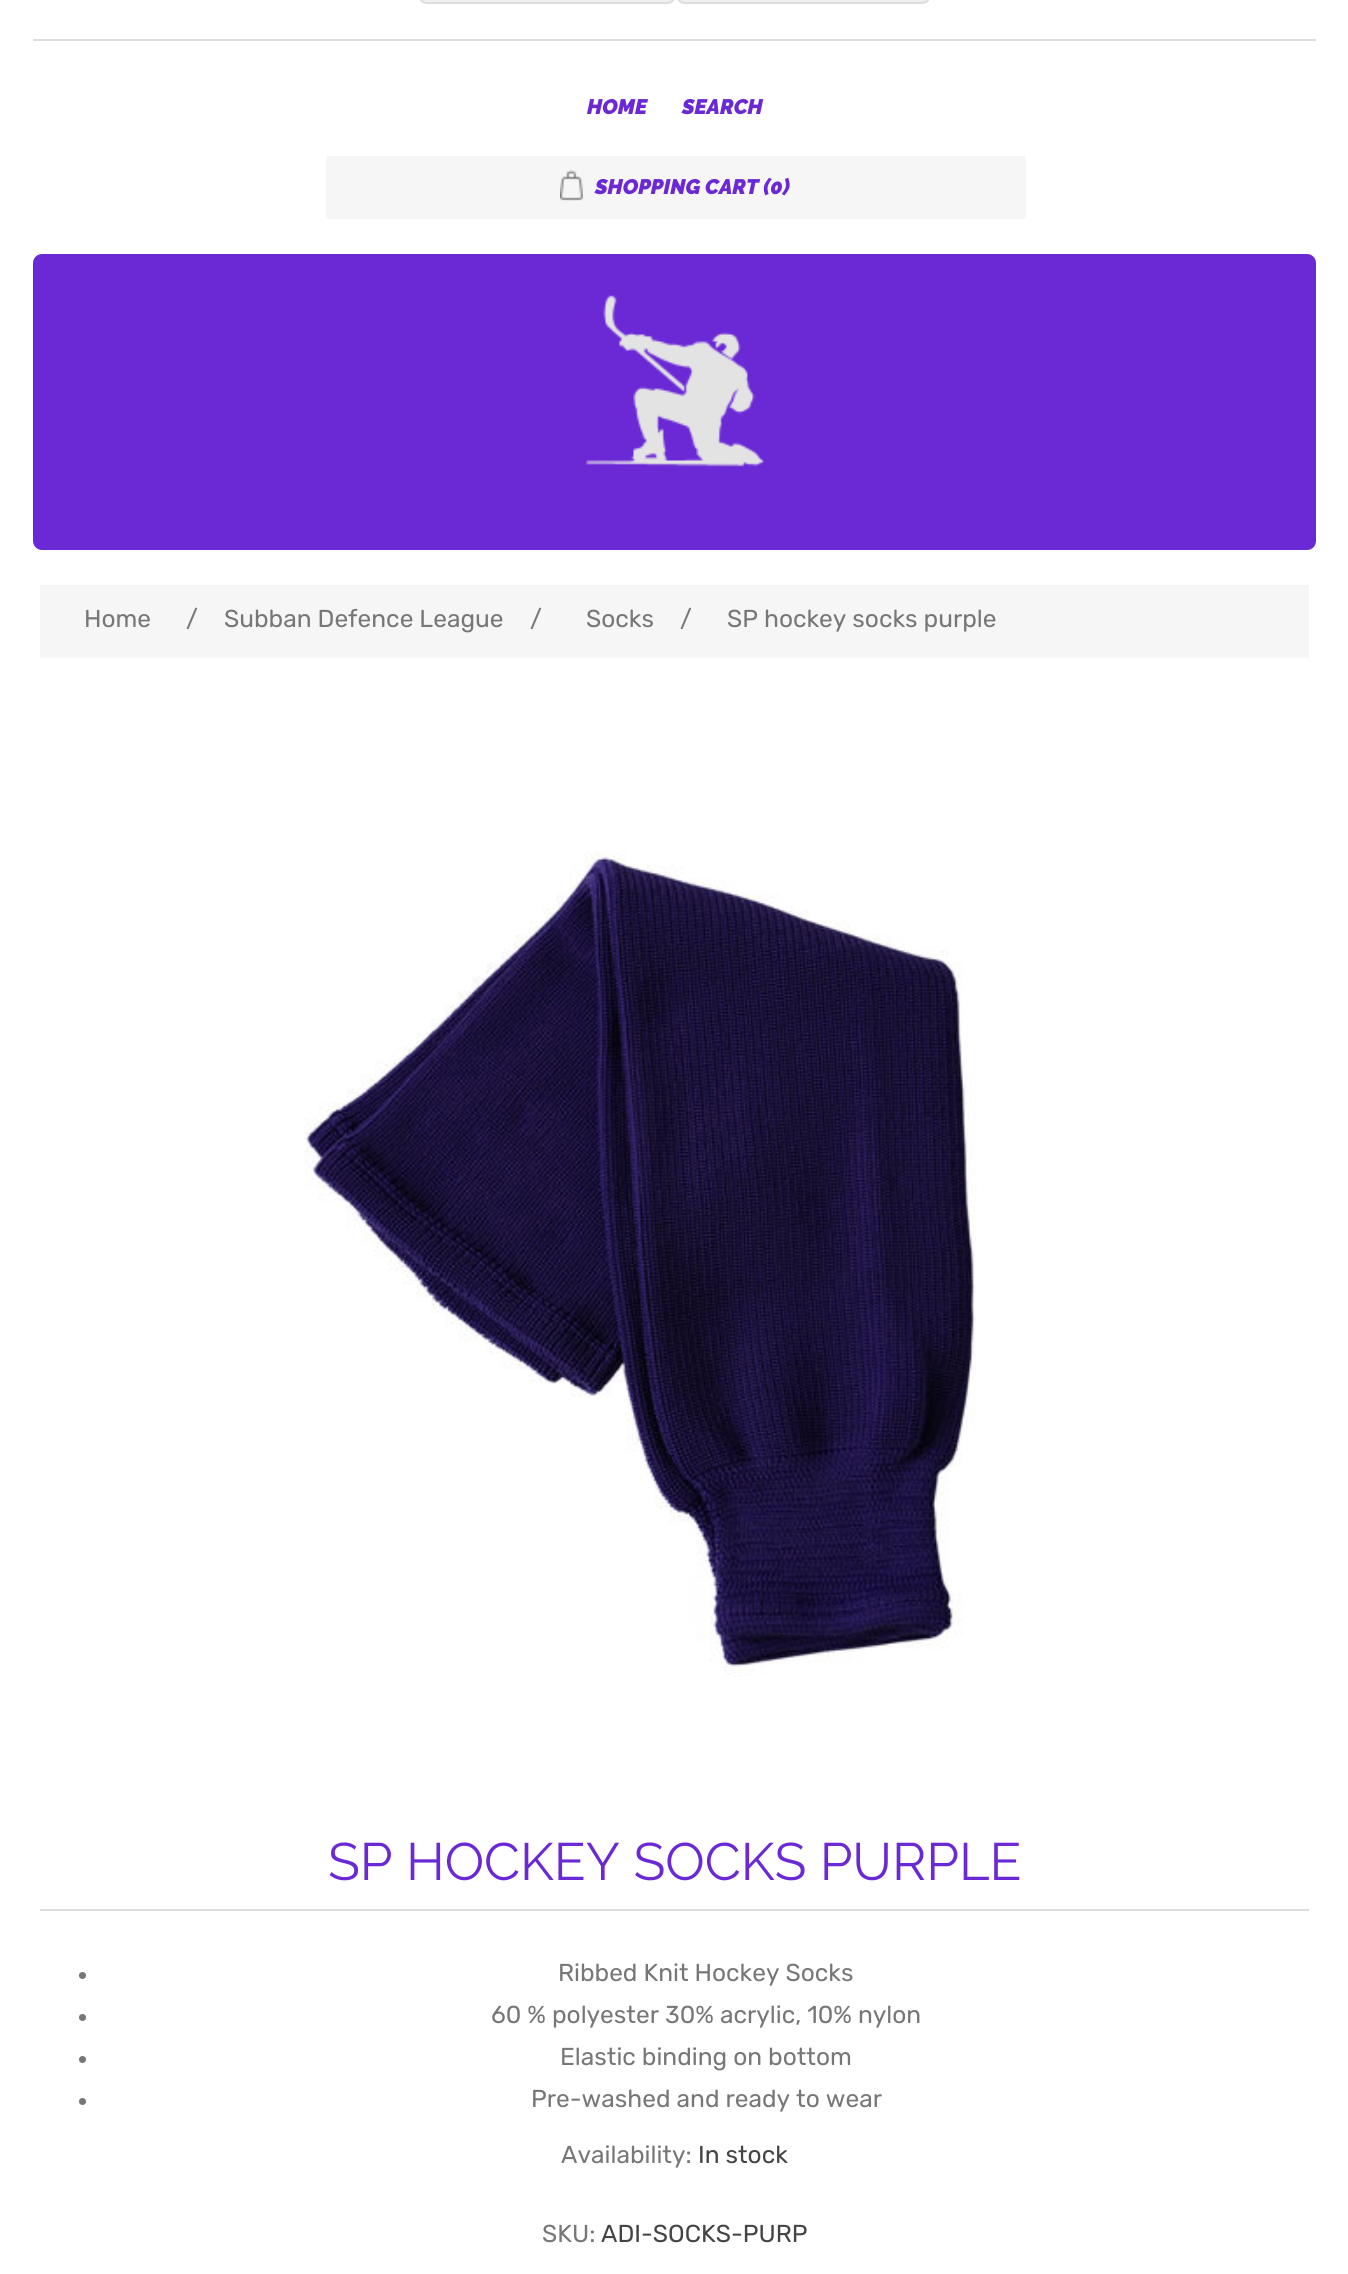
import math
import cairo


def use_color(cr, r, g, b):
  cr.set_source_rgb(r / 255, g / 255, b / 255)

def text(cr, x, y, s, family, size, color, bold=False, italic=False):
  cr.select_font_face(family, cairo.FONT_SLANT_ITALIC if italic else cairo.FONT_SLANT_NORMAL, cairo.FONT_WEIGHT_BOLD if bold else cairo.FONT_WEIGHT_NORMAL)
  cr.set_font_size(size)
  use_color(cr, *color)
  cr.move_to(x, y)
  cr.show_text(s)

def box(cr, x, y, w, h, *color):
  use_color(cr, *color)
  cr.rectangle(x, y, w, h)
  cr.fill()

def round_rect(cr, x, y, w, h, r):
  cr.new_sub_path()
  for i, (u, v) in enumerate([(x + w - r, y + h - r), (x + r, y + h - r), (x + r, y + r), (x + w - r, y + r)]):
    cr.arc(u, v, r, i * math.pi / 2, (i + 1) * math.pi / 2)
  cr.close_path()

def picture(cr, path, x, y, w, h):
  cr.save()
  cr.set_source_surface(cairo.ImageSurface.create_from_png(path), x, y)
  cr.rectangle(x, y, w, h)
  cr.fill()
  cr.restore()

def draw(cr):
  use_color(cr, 255, 255, 255)
  cr.paint()
  box(cr, 33, 39, 1283, 2, 221, 221, 221)
  use_color(cr, 239, 239, 239)
  round_rect(cr, 419, -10, 256, 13, 8)
  cr.fill_preserve()
  use_color(cr, 221, 221, 221)
  cr.stroke()
  use_color(cr, 239, 239, 239)
  round_rect(cr, 677, -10, 253, 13, 8)
  cr.fill_preserve()
  use_color(cr, 221, 221, 221)
  cr.stroke()
  box(cr, 326, 156, 700, 63, 246, 246, 246)
  picture(cr, "img_01.png", 560, 170, 23, 31)
  use_color(cr, 107, 41, 214)
  round_rect(cr, 33, 254, 1283, 296, 9)
  cr.fill()
  picture(cr, "img_02.png", 585, 295, 179, 172)
  box(cr, 40, 585, 1269, 73, 246, 246, 246)
  picture(cr, "img_03.png", 304, 851, 673, 826)
  box(cr, 40, 1909, 1269, 2, 221, 221, 221)
  use_color(cr, 119, 119, 119)
  cr.arc(82.5, 1975.5, 3.5, 0, 2 * math.pi)
  cr.fill()
  cr.arc(82.5, 2017.5, 3.5, 0, 2 * math.pi)
  cr.fill()
  cr.arc(82.5, 2059.5, 3.5, 0, 2 * math.pi)
  cr.fill()
  cr.arc(82.5, 2101.5, 3.5, 0, 2 * math.pi)
  cr.fill()
  text(cr, 587, 114, "HOME", "Raleway Thin", 21, (107, 41, 214), italic=True)
  text(cr, 682, 114, "SEARCH", "Raleway Thin", 21, (107, 41, 214), italic=True)
  text(cr, 595, 194, "SHOPPING CART (0)", "Raleway Thin", 21, (107, 41, 214), italic=True)
  text(cr, 84, 627, "Home", "Rubik", 24.5, (119, 119, 119))
  text(cr, 186, 627, "/", "Rubik", 24.5, (119, 119, 119))
  text(cr, 224, 627, "Subban Defence League", "Rubik", 24.5, (119, 119, 119))
  text(cr, 530, 627, "/", "Rubik", 24.5, (119, 119, 119))
  text(cr, 586, 627, "Socks", "Rubik", 24.5, (119, 119, 119))
  text(cr, 680, 627, "/", "Rubik", 24.5, (119, 119, 119))
  text(cr, 727, 627, "SP hockey socks purple", "Rubik", 24.5, (119, 119, 119))
  text(cr, 328, 1880, "SP HOCKEY SOCKS PURPLE", "Raleway Thin", 52.5, (107, 41, 214))
  text(cr, 558, 1981, "Ribbed Knit Hockey Socks", "Rubik", 24.5, (119, 119, 119))
  text(cr, 491, 2023, "60 % polyester 30% acrylic, 10% nylon", "Rubik", 24.5, (119, 119, 119))
  text(cr, 560, 2065, "Elastic binding on bottom", "Rubik", 24.5, (119, 119, 119))
  text(cr, 531, 2107, "Pre-washed and ready to wear", "Rubik", 24.5, (119, 119, 119))
  text(cr, 561, 2163, "Availability:", "Rubik", 24.5, (119, 119, 119))
  text(cr, 698, 2163, "In stock", "Rubik", 24.5, (68, 68, 68))
  text(cr, 542, 2242, "SKU:", "Rubik", 24.5, (119, 119, 119))
  text(cr, 601, 2242, "ADI-SOCKS-PURP", "Rubik", 24.5, (68, 68, 68))


surface = cairo.ImageSurface(cairo.FORMAT_RGB24, 1348, 2274)
cr = cairo.Context(surface)
options = cairo.FontOptions()
options.set_hint_metrics(cairo.HINT_METRICS_OFF)
options.set_hint_style(cairo.HINT_STYLE_NONE)
cr.set_font_options(options)
cr.set_miter_limit(4)
draw(cr)
surface.write_to_png("out.png")
